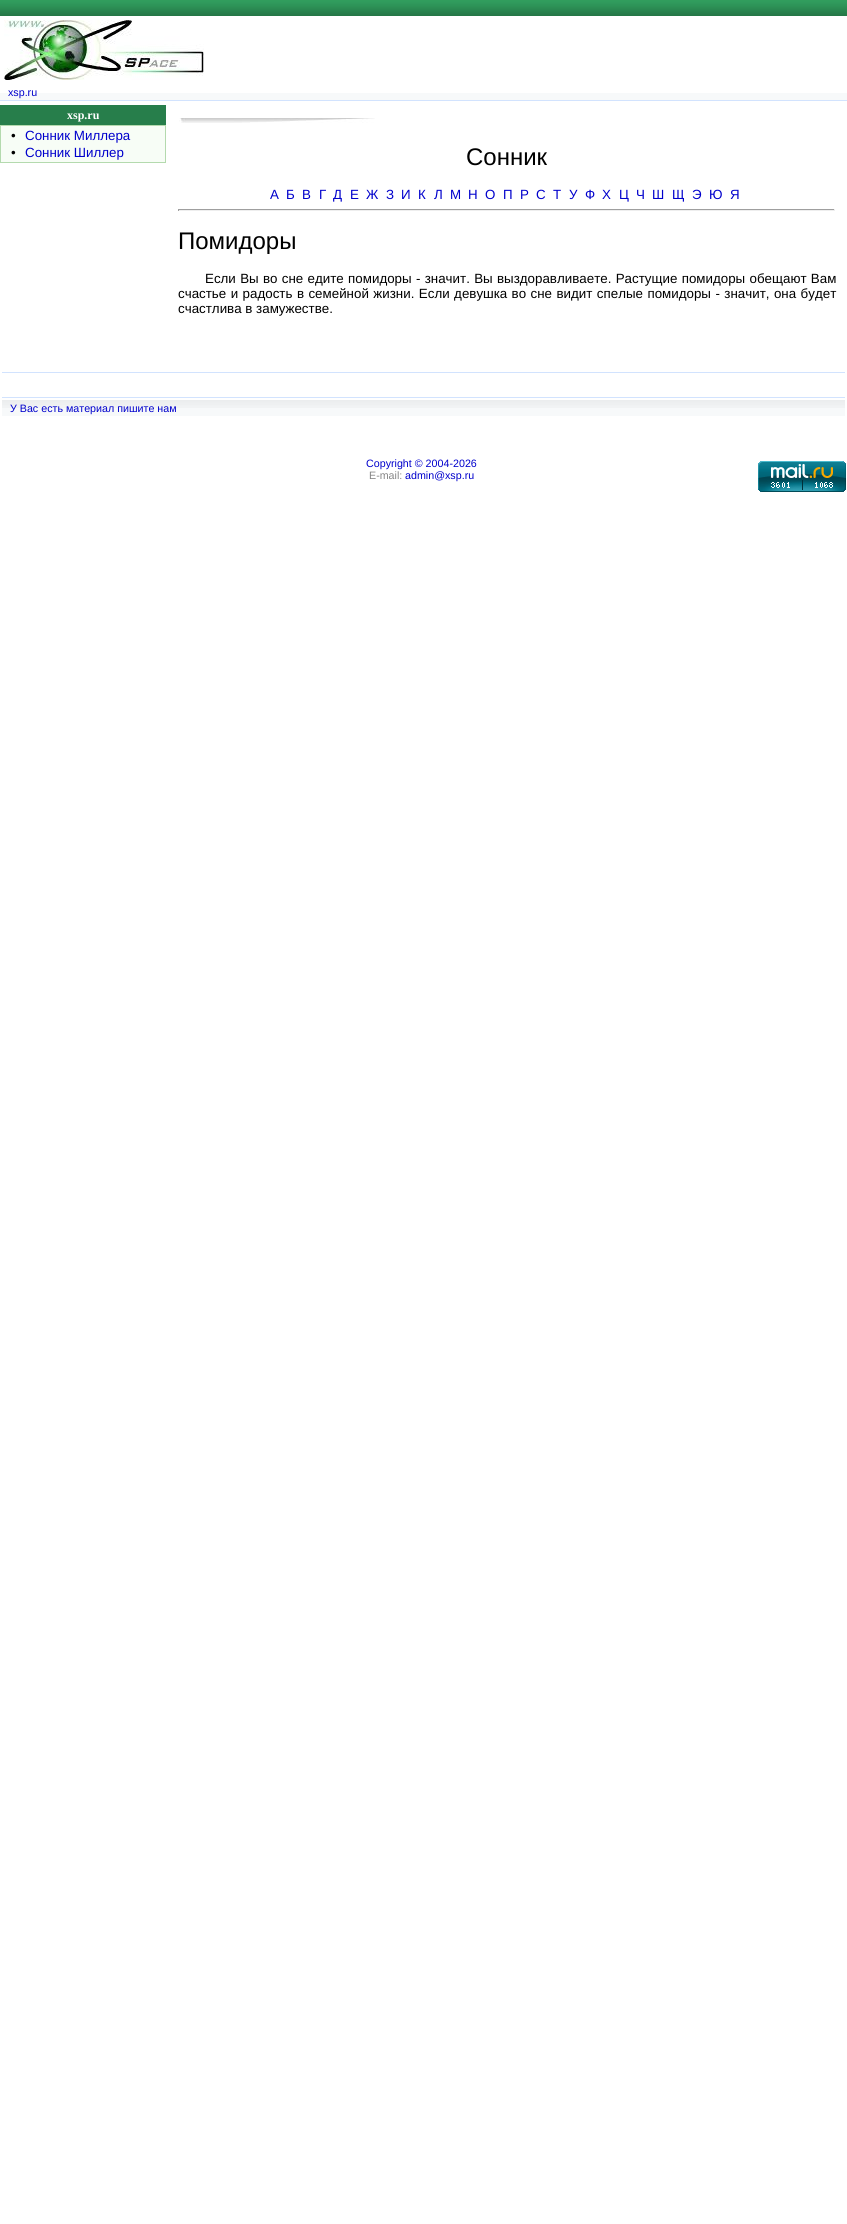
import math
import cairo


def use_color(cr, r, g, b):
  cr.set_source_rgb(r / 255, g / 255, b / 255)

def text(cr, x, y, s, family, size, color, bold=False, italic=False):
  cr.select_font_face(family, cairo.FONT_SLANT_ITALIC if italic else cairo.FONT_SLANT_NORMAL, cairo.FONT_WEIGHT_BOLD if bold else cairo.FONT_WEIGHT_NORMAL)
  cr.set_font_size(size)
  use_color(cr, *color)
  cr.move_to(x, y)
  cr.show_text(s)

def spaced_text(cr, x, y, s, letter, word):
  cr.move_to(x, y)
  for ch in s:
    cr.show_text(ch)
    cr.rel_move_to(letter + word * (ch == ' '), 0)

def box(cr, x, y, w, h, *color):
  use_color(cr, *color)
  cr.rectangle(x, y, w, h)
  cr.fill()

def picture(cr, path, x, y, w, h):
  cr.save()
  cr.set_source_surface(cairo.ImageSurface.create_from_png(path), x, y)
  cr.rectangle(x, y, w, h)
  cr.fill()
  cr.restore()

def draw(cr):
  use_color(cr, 255, 255, 255)
  cr.paint()
  picture(cr, "img_01.png", 0, 0, 847, 16)
  picture(cr, "img_02.png", 4, 20, 200, 60)
  box(cr, 0, 93, 847, 7, 247, 249, 250)
  box(cr, 0, 100, 847, 1, 210, 227, 254)
  box(cr, 0, 105, 166, 20, 39, 126, 75)
  box(cr, 0, 125, 166, 38, 180, 218, 174)
  box(cr, 1, 126, 164, 36, 247, 253, 246)
  picture(cr, "img_03.png", 179, 118, 196, 5)
  box(cr, 178, 209, 657, 1, 159, 159, 159)
  box(cr, 834, 209, 1, 2, 238, 238, 238)
  box(cr, 178, 210, 657, 1, 238, 238, 238)
  box(cr, 178, 209, 1, 2, 159, 159, 159)
  box(cr, 2, 372, 843, 1, 210, 227, 254)
  box(cr, 2, 397, 843, 1, 210, 227, 254)
  box(cr, 2, 408, 843, 8, 247, 249, 250)
  picture(cr, "img_04.png", 2, 400, 843, 8)
  picture(cr, "img_05.png", 758, 461, 88, 31)
  text(cr, 8, 96, "xsp.ru", "Liberation Sans", 10.7, (0, 0, 204))
  text(cr, 67, 119, "xsp.ru", "Liberation Serif", 12, (255, 255, 255), bold=True)
  text(cr, 11, 140, "•", "Liberation Sans", 13.35, (0, 0, 0))
  text(cr, 25, 140, "Сонник Миллера", "Liberation Sans", 13.35, (0, 0, 204))
  text(cr, 11, 157, "•", "Liberation Sans", 13.35, (0, 0, 0))
  text(cr, 25, 157, "Сонник Шиллер", "Liberation Sans", 13.35, (0, 0, 204))
  text(cr, 466, 165, "Сонник", "Liberation Sans", 24, (0, 0, 0))
  text(cr, 270, 199, "А", "Liberation Sans", 13.35, (0, 0, 204))
  text(cr, 286, 199, "Б", "Liberation Sans", 13.35, (0, 0, 204))
  text(cr, 302, 199, "В", "Liberation Sans", 13.35, (0, 0, 204))
  text(cr, 319, 199, "Г", "Liberation Sans", 13.35, (0, 0, 204))
  text(cr, 333, 199, "Д", "Liberation Sans", 13.35, (0, 0, 204))
  text(cr, 350, 199, "Е", "Liberation Sans", 13.35, (0, 0, 204))
  text(cr, 366, 199, "Ж", "Liberation Sans", 13.35, (0, 0, 204))
  text(cr, 386, 199, "З", "Liberation Sans", 13.35, (0, 0, 204))
  text(cr, 401, 199, "И", "Liberation Sans", 13.35, (0, 0, 204))
  text(cr, 418, 199, "К", "Liberation Sans", 13.35, (0, 0, 204))
  text(cr, 434, 199, "Л", "Liberation Sans", 13.35, (0, 0, 204))
  text(cr, 450, 199, "М", "Liberation Sans", 13.35, (0, 0, 204))
  text(cr, 468, 199, "Н", "Liberation Sans", 13.35, (0, 0, 204))
  text(cr, 485, 199, "О", "Liberation Sans", 13.35, (0, 0, 204))
  text(cr, 503, 199, "П", "Liberation Sans", 13.35, (0, 0, 204))
  text(cr, 520, 199, "Р", "Liberation Sans", 13.35, (0, 0, 204))
  text(cr, 536, 199, "С", "Liberation Sans", 13.35, (0, 0, 204))
  text(cr, 553, 199, "Т", "Liberation Sans", 13.35, (0, 0, 204))
  text(cr, 569, 199, "У", "Liberation Sans", 13.35, (0, 0, 204))
  text(cr, 585, 199, "Ф", "Liberation Sans", 13.35, (0, 0, 204))
  text(cr, 602, 199, "Х", "Liberation Sans", 13.35, (0, 0, 204))
  text(cr, 619, 199, "Ц", "Liberation Sans", 13.35, (0, 0, 204))
  text(cr, 636, 199, "Ч", "Liberation Sans", 13.35, (0, 0, 204))
  text(cr, 652, 199, "Ш", "Liberation Sans", 13.35, (0, 0, 204))
  text(cr, 672, 199, "Щ", "Liberation Sans", 13.35, (0, 0, 204))
  text(cr, 692, 199, "Э", "Liberation Sans", 13.35, (0, 0, 204))
  text(cr, 709, 199, "Ю", "Liberation Sans", 13.35, (0, 0, 204))
  text(cr, 730, 199, "Я", "Liberation Sans", 13.35, (0, 0, 204))
  text(cr, 178, 249, "Помидоры", "Liberation Sans", 24, (0, 0, 0))
  cr.set_font_size(13.35)
  spaced_text(cr, 205, 283, "Если Вы во сне едите помидоры - значит. Вы выздоравливаете. Растущие помидоры обещают Вам", 0, 0.6)
  spaced_text(cr, 178, 298, "счастье и радость в семейной жизни. Если девушка во сне видит спелые помидоры - значит, она будет", 0, 0.75)
  text(cr, 178, 313, "счастлива в замужестве.", "Liberation Sans", 13.35, (0, 0, 0))
  text(cr, 10, 412, "У Вас есть материал пишите нам", "Liberation Sans", 10.7, (0, 0, 204))
  text(cr, 366, 467, "Copyright © 2004-2026", "Liberation Sans", 10.7, (0, 0, 204))
  text(cr, 369, 479, "E-mail:", "Liberation Sans", 10.7, (133, 133, 133))
  text(cr, 405, 479, "admin@xsp.ru", "Liberation Sans", 10.7, (0, 0, 204))


surface = cairo.ImageSurface(cairo.FORMAT_RGB24, 847, 2224)
cr = cairo.Context(surface)
options = cairo.FontOptions()
options.set_hint_metrics(cairo.HINT_METRICS_OFF)
options.set_hint_style(cairo.HINT_STYLE_NONE)
cr.set_font_options(options)
cr.set_miter_limit(4)
draw(cr)
surface.write_to_png("out.png")
